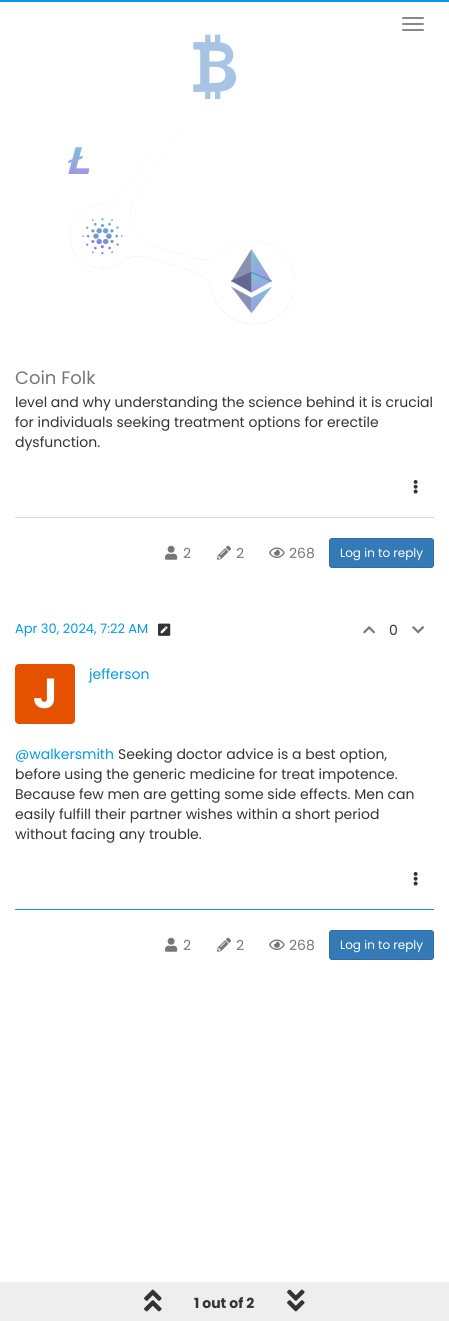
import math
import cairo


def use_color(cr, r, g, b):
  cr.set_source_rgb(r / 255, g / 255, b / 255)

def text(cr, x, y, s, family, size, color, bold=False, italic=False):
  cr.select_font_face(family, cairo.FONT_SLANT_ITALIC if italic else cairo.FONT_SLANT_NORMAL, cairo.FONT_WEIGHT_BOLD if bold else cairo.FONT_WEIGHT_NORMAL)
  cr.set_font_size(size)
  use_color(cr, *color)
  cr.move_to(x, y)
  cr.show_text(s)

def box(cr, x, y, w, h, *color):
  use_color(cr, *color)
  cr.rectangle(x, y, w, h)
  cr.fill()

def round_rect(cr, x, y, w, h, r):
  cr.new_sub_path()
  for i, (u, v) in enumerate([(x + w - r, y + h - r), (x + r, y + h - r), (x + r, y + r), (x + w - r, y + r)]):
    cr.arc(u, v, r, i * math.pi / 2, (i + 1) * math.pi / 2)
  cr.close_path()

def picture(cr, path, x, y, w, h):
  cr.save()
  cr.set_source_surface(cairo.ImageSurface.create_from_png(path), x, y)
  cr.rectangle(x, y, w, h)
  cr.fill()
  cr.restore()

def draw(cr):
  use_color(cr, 255, 255, 255)
  cr.paint()
  box(cr, 0, 0, 449, 2, 3, 155, 229)
  use_color(cr, 136, 136, 136)
  round_rect(cr, 402, 17, 22, 2, 1)
  cr.fill()
  round_rect(cr, 402, 23, 22, 2, 1)
  cr.fill()
  round_rect(cr, 402, 29, 22, 2, 1)
  cr.fill()
  picture(cr, "img_01.png", 68, 34, 227, 290)
  box(cr, 15, 517, 419, 1, 221, 221, 221)
  picture(cr, "img_02.png", 413, 480, 5, 14)
  picture(cr, "img_03.png", 165, 545, 13, 15)
  picture(cr, "img_04.png", 217, 545, 14, 15)
  picture(cr, "img_05.png", 269, 547, 16, 11)
  use_color(cr, 51, 122, 183)
  round_rect(cr, 329.5, 538.5, 104, 29, 2.5)
  cr.fill_preserve()
  use_color(cr, 46, 109, 164)
  cr.set_line_width(1)
  cr.stroke()
  box(cr, 15, 909, 419, 1, 3, 155, 229)
  picture(cr, "img_06.png", 158, 623, 13, 13)
  picture(cr, "img_07.png", 363, 626, 12, 8)
  picture(cr, "img_08.png", 412, 626, 12, 8)
  use_color(cr, 230, 81, 0)
  round_rect(cr, 15, 664, 60, 60, 4)
  cr.fill()
  picture(cr, "img_02.png", 413, 872, 5, 14)
  picture(cr, "img_03.png", 165, 937, 13, 15)
  picture(cr, "img_04.png", 217, 937, 14, 15)
  picture(cr, "img_05.png", 269, 939, 16, 11)
  use_color(cr, 51, 122, 183)
  round_rect(cr, 329.5, 930.5, 104, 29, 2.5)
  cr.fill_preserve()
  use_color(cr, 46, 109, 164)
  cr.stroke()
  box(cr, 0, 1282, 449, 39, 238, 238, 238)
  picture(cr, "img_09.png", 144, 1289, 18, 23)
  picture(cr, "img_10.png", 287, 1289, 18, 23)
  text(cr, 15, 384, "Coin Folk", "Poppins", 18, (119, 119, 119))
  text(cr, 15, 407, "level and why understanding the science behind it is crucial", "Poppins", 14, (51, 51, 51))
  text(cr, 15, 427, "for individuals seeking treatment options for erectile", "Poppins", 14, (51, 51, 51))
  text(cr, 15, 447, "dysfunction.", "Poppins", 14, (51, 51, 51))
  text(cr, 183, 558, "2", "Poppins", 14, (119, 119, 119))
  text(cr, 236, 558, "2", "Poppins", 14, (119, 119, 119))
  text(cr, 289, 558, "268", "Poppins", 14, (119, 119, 119))
  text(cr, 340, 557, "Log in to reply", "Poppins", 12, (255, 255, 255))
  text(cr, 15, 633, "Apr 30, 2024, 7:22 AM", "Poppins", 13, (3, 155, 229))
  text(cr, 389, 635, "0", "Poppins", 14, (51, 51, 51))
  text(cr, 89, 679, "jefferson", "Poppins", 14, (3, 155, 229))
  text(cr, 33, 708, "J", "Poppins", 42, (255, 255, 255), bold=True)
  text(cr, 15, 759, "@walkersmith", "Poppins", 14, (3, 155, 229))
  text(cr, 118, 759, "Seeking doctor advice is a best option,", "Poppins", 14, (51, 51, 51))
  text(cr, 15, 779, "before using the generic medicine for treat impotence.", "Poppins", 14, (51, 51, 51))
  text(cr, 15, 799, "Because few men are getting some side effects. Men can", "Poppins", 14, (51, 51, 51))
  text(cr, 15, 819, "easily fulfill their partner wishes within a short period", "Poppins", 14, (51, 51, 51))
  text(cr, 15, 839, "without facing any trouble.", "Poppins", 14, (51, 51, 51))
  text(cr, 183, 950, "2", "Poppins", 14, (119, 119, 119))
  text(cr, 236, 950, "2", "Poppins", 14, (119, 119, 119))
  text(cr, 289, 950, "268", "Poppins", 14, (119, 119, 119))
  text(cr, 340, 949, "Log in to reply", "Poppins", 12, (255, 255, 255))
  text(cr, 194, 1308, "1 out of 2", "Poppins", 14, (51, 51, 51), bold=True)


surface = cairo.ImageSurface(cairo.FORMAT_RGB24, 449, 1321)
cr = cairo.Context(surface)
options = cairo.FontOptions()
options.set_hint_metrics(cairo.HINT_METRICS_OFF)
options.set_hint_style(cairo.HINT_STYLE_NONE)
cr.set_font_options(options)
cr.set_miter_limit(4)
draw(cr)
surface.write_to_png("out.png")
